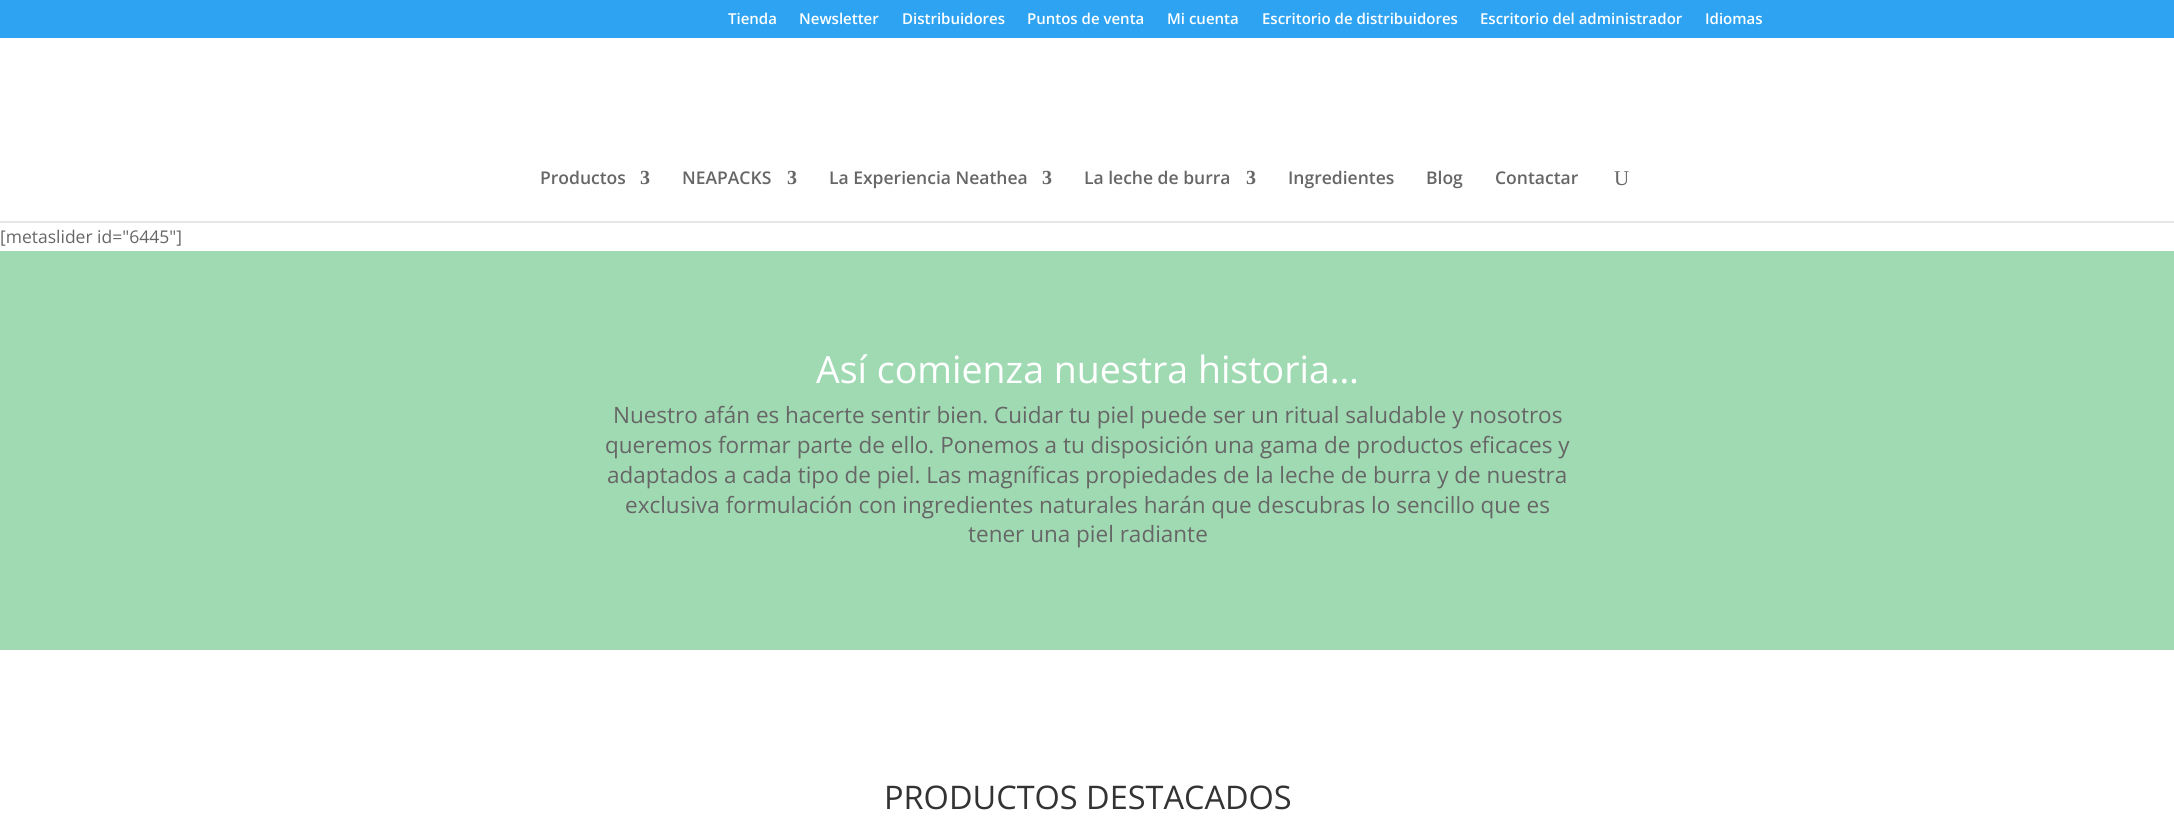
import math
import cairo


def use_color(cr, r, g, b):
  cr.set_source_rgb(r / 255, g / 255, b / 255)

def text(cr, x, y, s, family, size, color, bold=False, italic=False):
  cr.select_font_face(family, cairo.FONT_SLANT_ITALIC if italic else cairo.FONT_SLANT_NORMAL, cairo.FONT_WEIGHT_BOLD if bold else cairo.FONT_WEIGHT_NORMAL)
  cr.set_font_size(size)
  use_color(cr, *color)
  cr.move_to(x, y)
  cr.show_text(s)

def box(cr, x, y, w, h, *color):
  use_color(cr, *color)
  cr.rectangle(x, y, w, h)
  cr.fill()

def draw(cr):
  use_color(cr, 255, 255, 255)
  cr.paint()
  box(cr, 0, 0, 2174, 38, 46, 163, 242)
  box(cr, 0, 221, 2174, 2, 230, 230, 230)
  box(cr, 0, 251, 2174, 399, 160, 218, 179)
  text(cr, 728, 24, "Tienda", "Open Sans SemiBold", 15, (255, 255, 255))
  text(cr, 799, 24, "Newsletter", "Open Sans SemiBold", 15, (255, 255, 255))
  text(cr, 902, 24, "Distribuidores", "Open Sans SemiBold", 15, (255, 255, 255))
  text(cr, 1027, 24, "Puntos de venta", "Open Sans SemiBold", 15, (255, 255, 255))
  text(cr, 1167, 24, "Mi cuenta", "Open Sans SemiBold", 15, (255, 255, 255))
  text(cr, 1262, 24, "Escritorio de distribuidores", "Open Sans SemiBold", 15, (255, 255, 255))
  text(cr, 1480, 24, "Escritorio del administrador", "Open Sans SemiBold", 15, (255, 255, 255))
  text(cr, 1705, 24, "Idiomas", "Open Sans SemiBold", 15, (255, 255, 255))
  text(cr, 540, 184, "Productos", "Open Sans SemiBold", 17.5, (102, 102, 102))
  text(cr, 640, 184, "3", "Liberation Serif", 20, (102, 102, 102), bold=True)
  text(cr, 682, 184, "NEAPACKS", "Open Sans SemiBold", 17.5, (102, 102, 102))
  text(cr, 787, 184, "3", "Liberation Serif", 20, (102, 102, 102), bold=True)
  text(cr, 829, 184, "La Experiencia Neathea", "Open Sans SemiBold", 17.5, (102, 102, 102))
  text(cr, 1042, 184, "3", "Liberation Serif", 20, (102, 102, 102), bold=True)
  text(cr, 1084, 184, "La leche de burra", "Open Sans SemiBold", 17.5, (102, 102, 102))
  text(cr, 1246, 184, "3", "Liberation Serif", 20, (102, 102, 102), bold=True)
  text(cr, 1288, 184, "Ingredientes", "Open Sans SemiBold", 17.5, (102, 102, 102))
  text(cr, 1426, 184, "Blog", "Open Sans SemiBold", 17.5, (102, 102, 102))
  text(cr, 1495, 184, "Contactar", "Open Sans SemiBold", 17.5, (102, 102, 102))
  text(cr, 1614, 185, "U", "Liberation Serif", 21, (102, 102, 102))
  text(cr, 0, 243, "[metaslider id=\"6445\"]", "Open Sans", 17.5, (102, 102, 102))
  text(cr, 816, 383, "Así comienza nuestra historia…", "Open Sans", 37.5, (255, 255, 255))
  text(cr, 613, 423, "Nuestro afán es hacerte sentir bien. Cuidar tu piel puede ser un ritual saludable y nosotros", "Open Sans", 22.5, (102, 102, 102))
  text(cr, 605, 453, "queremos formar parte de ello. Ponemos a tu disposición una gama de productos eficaces y", "Open Sans", 22.5, (102, 102, 102))
  text(cr, 607, 483, "adaptados a cada tipo de piel. Las magníficas propiedades de la leche de burra y de nuestra", "Open Sans", 22.5, (102, 102, 102))
  text(cr, 625, 513, "exclusiva formulación con ingredientes naturales harán que descubras lo sencillo que es", "Open Sans", 22.5, (102, 102, 102))
  text(cr, 968, 542, "tener una piel radiante", "Open Sans", 22.5, (102, 102, 102))
  text(cr, 884, 809, "PRODUCTOS DESTACADOS", "Open Sans", 32.5, (51, 51, 51))


surface = cairo.ImageSurface(cairo.FORMAT_RGB24, 2174, 828)
cr = cairo.Context(surface)
options = cairo.FontOptions()
options.set_hint_metrics(cairo.HINT_METRICS_OFF)
options.set_hint_style(cairo.HINT_STYLE_NONE)
cr.set_font_options(options)
cr.set_miter_limit(4)
draw(cr)
surface.write_to_png("out.png")
